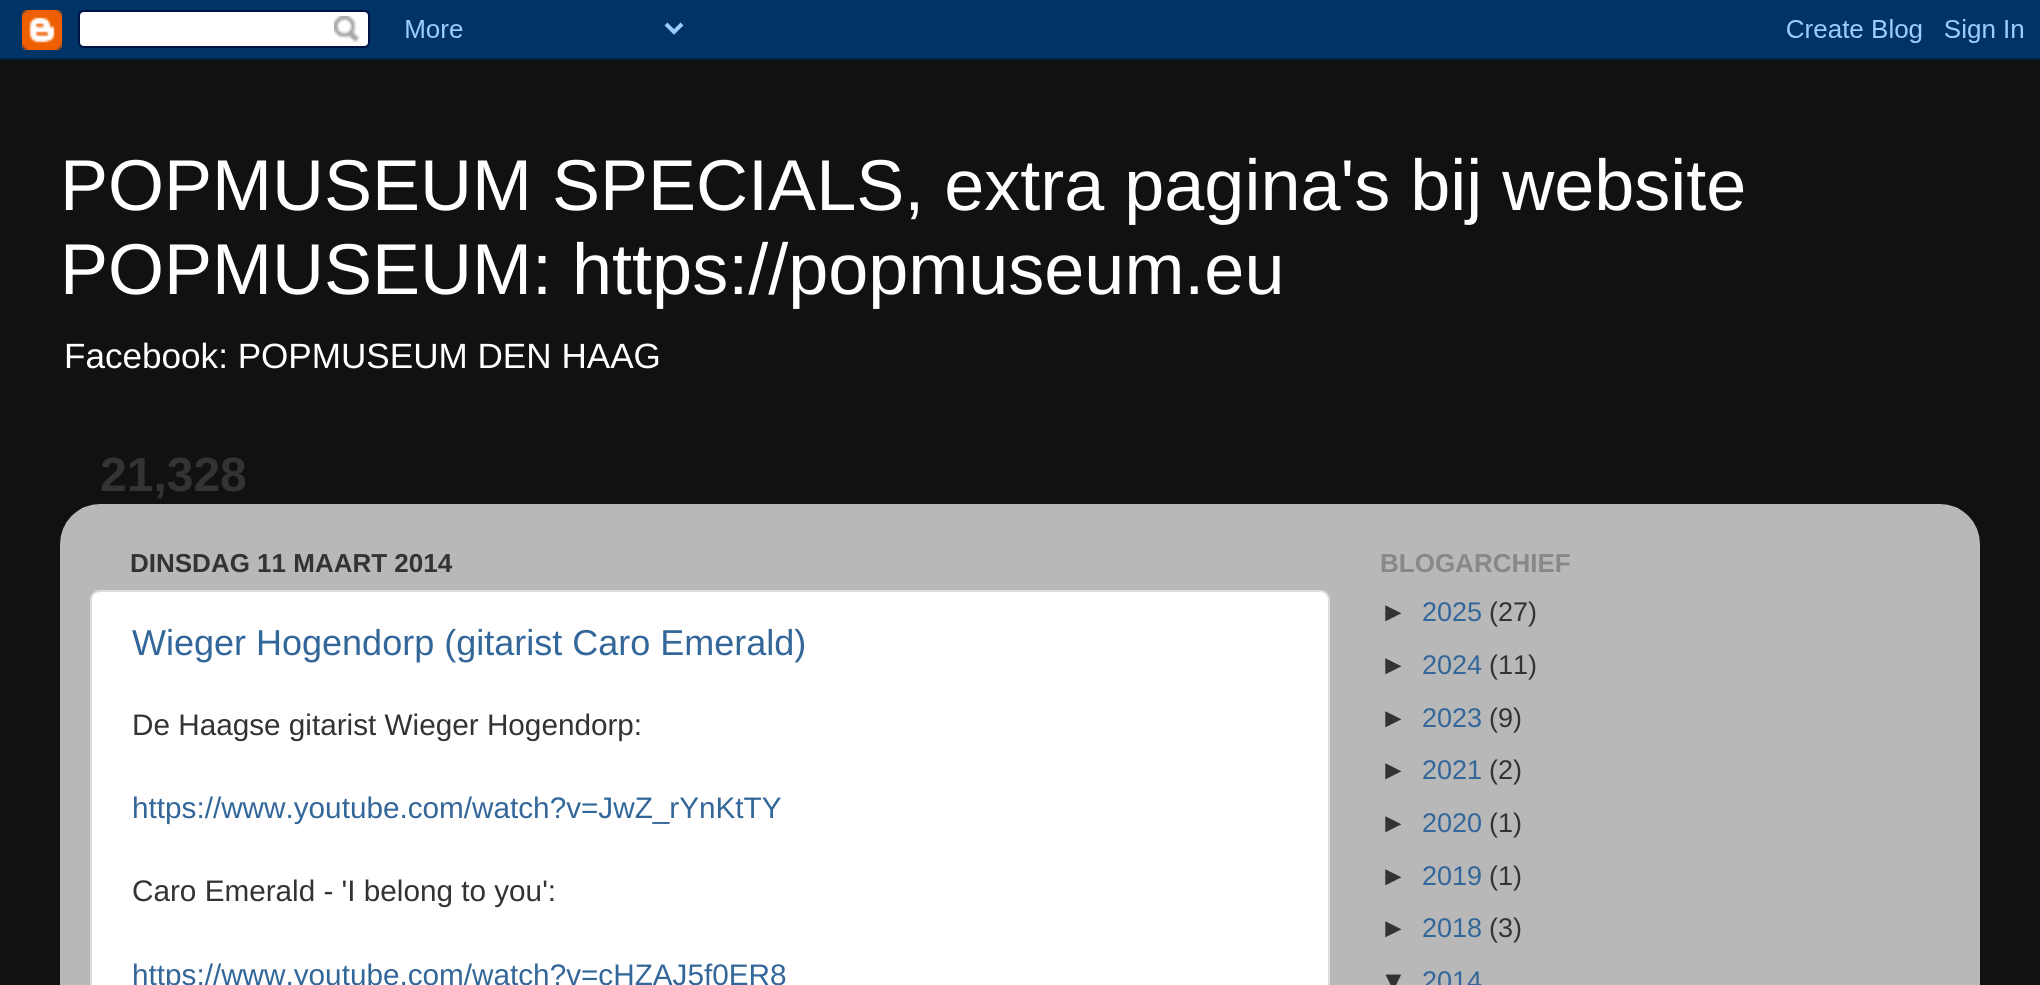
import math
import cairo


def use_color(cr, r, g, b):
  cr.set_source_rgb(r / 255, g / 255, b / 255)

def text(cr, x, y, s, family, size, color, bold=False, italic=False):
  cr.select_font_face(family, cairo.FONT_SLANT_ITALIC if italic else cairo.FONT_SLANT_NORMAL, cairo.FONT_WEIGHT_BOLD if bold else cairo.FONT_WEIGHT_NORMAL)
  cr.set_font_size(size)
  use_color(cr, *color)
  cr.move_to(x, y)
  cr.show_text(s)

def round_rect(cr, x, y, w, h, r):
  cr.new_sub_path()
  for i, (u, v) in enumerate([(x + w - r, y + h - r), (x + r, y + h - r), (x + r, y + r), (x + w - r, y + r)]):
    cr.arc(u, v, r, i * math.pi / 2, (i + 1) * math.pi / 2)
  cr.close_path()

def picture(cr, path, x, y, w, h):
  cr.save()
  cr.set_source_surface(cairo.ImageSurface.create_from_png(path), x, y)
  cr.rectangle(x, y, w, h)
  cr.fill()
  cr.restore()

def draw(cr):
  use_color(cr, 17, 17, 17)
  cr.paint()
  picture(cr, "img_01.png", 0, 0, 2040, 60)
  picture(cr, "img_02.png", 60, 504, 1920, 481)
  use_color(cr, 255, 255, 255)
  round_rect(cr, 91, 591, 1238, 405, 9)
  cr.fill_preserve()
  use_color(cr, 221, 221, 221)
  cr.stroke()
  text(cr, 60, 210, "POPMUSEUM SPECIALS, extra pagina's bij website", "Liberation Sans", 72, (255, 255, 255))
  text(cr, 60, 294, "POPMUSEUM: https://popmuseum.eu", "Liberation Sans", 72, (255, 255, 255))
  text(cr, 64, 368, "Facebook: POPMUSEUM DEN HAAG", "Liberation Sans", 35.1, (255, 255, 255))
  text(cr, 100, 491, "21,328", "Liberation Sans", 48, (51, 51, 51), bold=True)
  text(cr, 130, 572, "DINSDAG 11 MAART 2014", "Liberation Sans", 26, (51, 51, 51), bold=True)
  text(cr, 132, 655, "Wieger Hogendorp (gitarist Caro Emerald)", "Liberation Sans", 36, (51, 102, 153))
  text(cr, 132, 735, "De Haagse gitarist Wieger Hogendorp:", "Liberation Sans", 29.7, (51, 51, 51))
  text(cr, 132, 818, "https://www.youtube.com/watch?v=JwZ_rYnKtTY", "Liberation Sans", 29.7, (51, 102, 153))
  text(cr, 132, 901, "Caro Emerald - 'I belong to you':", "Liberation Sans", 29.7, (51, 51, 51))
  text(cr, 132, 985, "https://www.youtube.com/watch?v=cHZAJ5f0ER8", "Liberation Sans", 29.7, (51, 102, 153))
  text(cr, 1380, 572, "BLOGARCHIEF", "Liberation Sans", 26, (136, 136, 136), bold=True)
  text(cr, 1380, 621, "►", "Liberation Sans", 27, (51, 51, 51))
  text(cr, 1422, 621, "2025", "Liberation Sans", 27, (51, 102, 153))
  text(cr, 1489, 621, "(27)", "Liberation Sans", 27, (51, 51, 51))
  text(cr, 1380, 674, "►", "Liberation Sans", 27, (51, 51, 51))
  text(cr, 1422, 674, "2024", "Liberation Sans", 27, (51, 102, 153))
  text(cr, 1489, 674, "(11)", "Liberation Sans", 27, (51, 51, 51))
  text(cr, 1380, 727, "►", "Liberation Sans", 27, (51, 51, 51))
  text(cr, 1422, 727, "2023", "Liberation Sans", 27, (51, 102, 153))
  text(cr, 1489, 727, "(9)", "Liberation Sans", 27, (51, 51, 51))
  text(cr, 1380, 779, "►", "Liberation Sans", 27, (51, 51, 51))
  text(cr, 1422, 779, "2021", "Liberation Sans", 27, (51, 102, 153))
  text(cr, 1489, 779, "(2)", "Liberation Sans", 27, (51, 51, 51))
  text(cr, 1380, 832, "►", "Liberation Sans", 27, (51, 51, 51))
  text(cr, 1422, 832, "2020", "Liberation Sans", 27, (51, 102, 153))
  text(cr, 1489, 832, "(1)", "Liberation Sans", 27, (51, 51, 51))
  text(cr, 1380, 885, "►", "Liberation Sans", 27, (51, 51, 51))
  text(cr, 1422, 885, "2019", "Liberation Sans", 27, (51, 102, 153))
  text(cr, 1489, 885, "(1)", "Liberation Sans", 27, (51, 51, 51))
  text(cr, 1380, 937, "►", "Liberation Sans", 27, (51, 51, 51))
  text(cr, 1422, 937, "2018", "Liberation Sans", 27, (51, 102, 153))
  text(cr, 1489, 937, "(3)", "Liberation Sans", 27, (51, 51, 51))
  text(cr, 1380, 990, "▼", "Liberation Sans", 27, (51, 51, 51))
  text(cr, 1422, 990, "2014", "Liberation Sans", 27, (51, 102, 153))


surface = cairo.ImageSurface(cairo.FORMAT_RGB24, 2040, 985)
cr = cairo.Context(surface)
options = cairo.FontOptions()
options.set_hint_metrics(cairo.HINT_METRICS_OFF)
options.set_hint_style(cairo.HINT_STYLE_NONE)
cr.set_font_options(options)
cr.set_miter_limit(4)
draw(cr)
surface.write_to_png("out.png")
